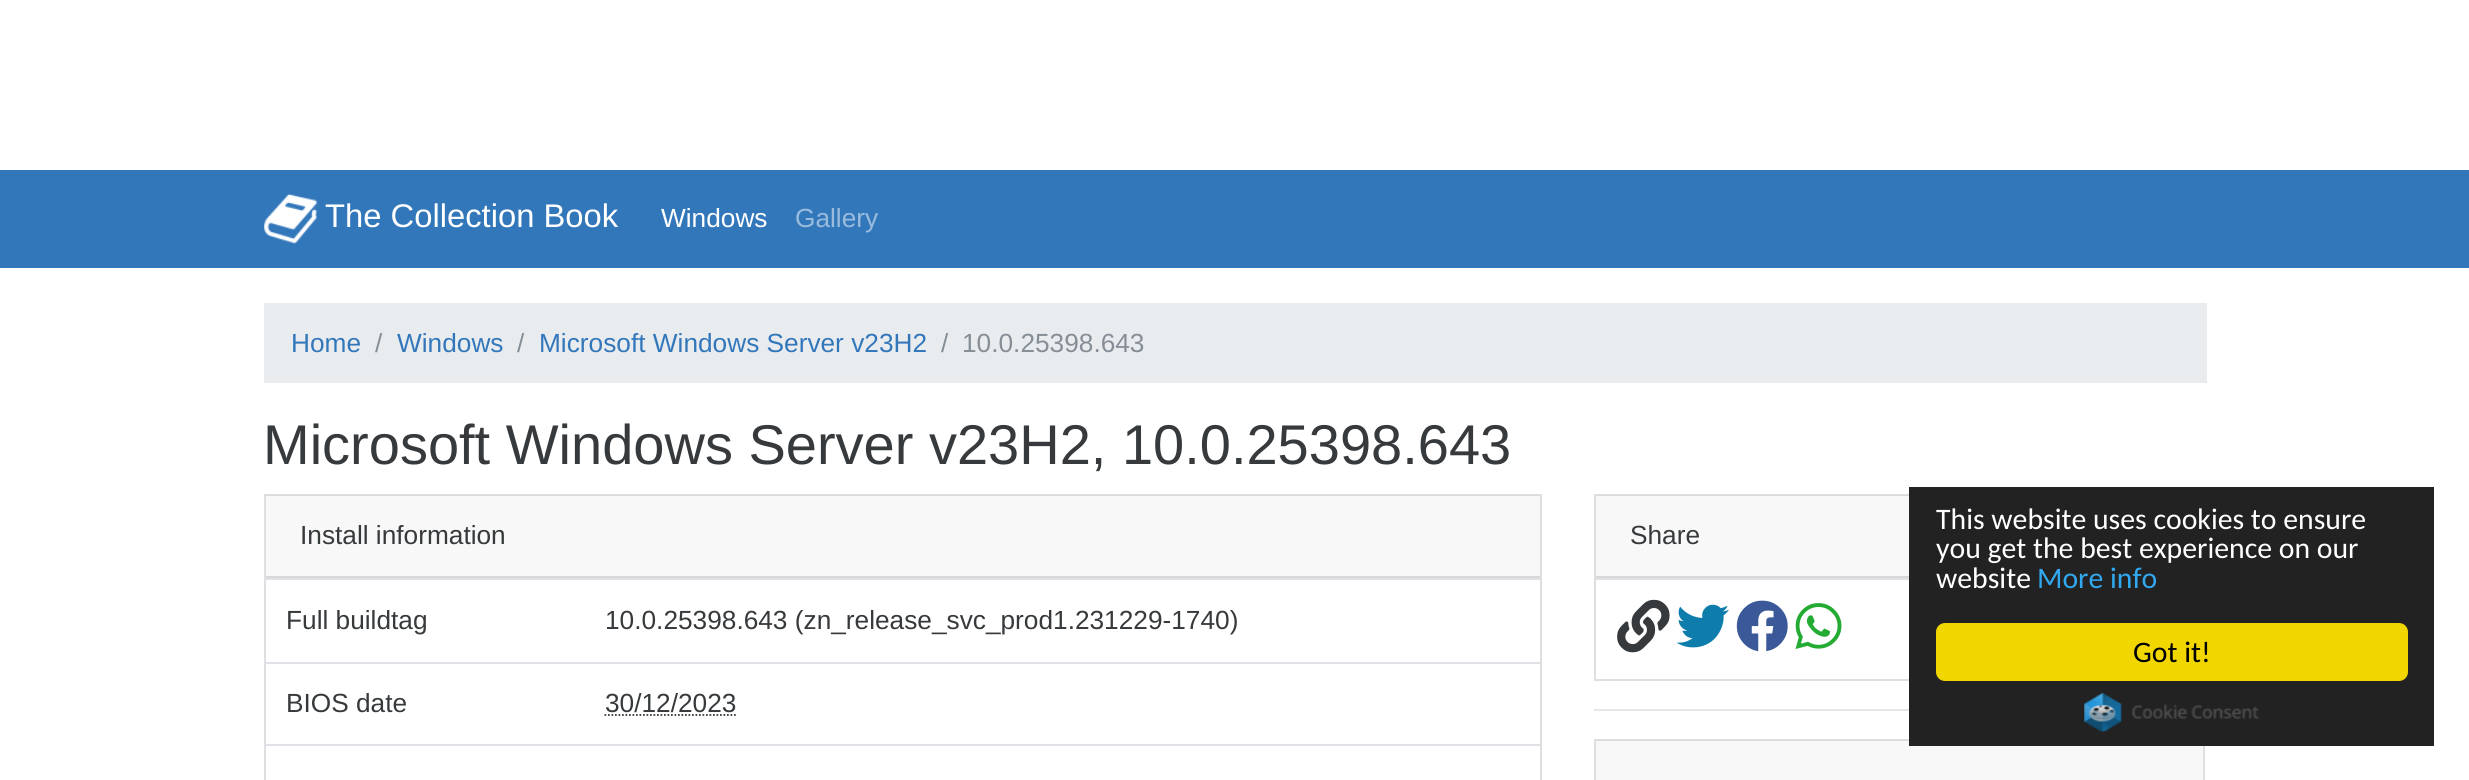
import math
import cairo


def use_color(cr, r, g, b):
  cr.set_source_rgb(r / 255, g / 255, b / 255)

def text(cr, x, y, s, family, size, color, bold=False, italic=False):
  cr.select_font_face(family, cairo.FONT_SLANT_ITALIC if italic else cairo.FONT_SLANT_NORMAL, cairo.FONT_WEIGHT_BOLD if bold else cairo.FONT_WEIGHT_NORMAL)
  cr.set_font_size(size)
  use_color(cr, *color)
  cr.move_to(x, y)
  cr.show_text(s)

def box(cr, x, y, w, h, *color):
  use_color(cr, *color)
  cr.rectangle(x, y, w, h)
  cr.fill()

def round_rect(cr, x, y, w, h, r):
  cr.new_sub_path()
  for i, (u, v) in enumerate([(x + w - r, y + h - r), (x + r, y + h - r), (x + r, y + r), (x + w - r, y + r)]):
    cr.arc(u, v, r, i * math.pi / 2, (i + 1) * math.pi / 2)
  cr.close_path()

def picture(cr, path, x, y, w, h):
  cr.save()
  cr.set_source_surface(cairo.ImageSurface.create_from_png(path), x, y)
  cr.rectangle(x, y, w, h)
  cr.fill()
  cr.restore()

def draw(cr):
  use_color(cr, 255, 255, 255)
  cr.paint()
  box(cr, 0, 170, 2469, 98, 51, 119, 187)
  picture(cr, "img_01.png", 264, 193, 53, 51)
  box(cr, 264, 303, 1943, 80, 233, 236, 239)
  cr.rectangle(265, 495, 1276, 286)
  use_color(cr, 223, 223, 223)
  cr.stroke()
  cr.set_source_rgba(0, 0, 0, 0.03)
  cr.rectangle(266, 495, 1274, 81)
  cr.fill()
  box(cr, 266, 576, 1274, 2, 216, 216, 216)
  box(cr, 264, 578, 1276, 2, 222, 226, 230)
  box(cr, 264, 662, 1276, 2, 222, 226, 230)
  cr.new_path()
  cr.move_to(604.5, 715)
  cr.line_to(736, 715)
  use_color(cr, 55, 58, 60)
  cr.set_line_width(1.8)
  cr.set_dash([1.75, 1.75])
  cr.stroke()
  box(cr, 264, 744, 1276, 2, 222, 226, 230)
  cr.rectangle(1595, 495, 609, 185)
  use_color(cr, 223, 223, 223)
  cr.set_line_width(2)
  cr.set_dash([])
  cr.stroke()
  cr.set_source_rgba(0, 0, 0, 0.03)
  cr.rectangle(1596, 495, 313, 81)
  cr.fill()
  box(cr, 1596, 576, 313, 2, 216, 216, 216)
  box(cr, 1594, 578, 315, 2, 222, 226, 230)
  picture(cr, "img_02.png", 1617, 599, 53, 54)
  picture(cr, "img_03.png", 1676, 604, 53, 44)
  picture(cr, "img_04.png", 1736, 600, 52, 52)
  picture(cr, "img_05.png", 1795, 603, 47, 46)
  box(cr, 1594, 709, 315, 2, 230, 230, 230)
  cr.rectangle(1595, 740, 609, 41)
  use_color(cr, 223, 223, 223)
  cr.stroke()
  cr.set_source_rgba(0, 0, 0, 0.03)
  cr.rectangle(1596, 740, 607, 40)
  cr.fill()
  box(cr, 1909, 487, 525, 259, 34, 34, 34)
  use_color(cr, 241, 214, 0)
  round_rect(cr, 1936, 623, 472, 58, 9)
  cr.fill()
  picture(cr, "img_06.png", 2084, 693, 175, 39)
  text(cr, 325, 227, "The Collection Book", "Liberation Sans", 32.75, (255, 255, 255))
  text(cr, 661, 227, "Windows", "Liberation Sans", 26.25, (255, 255, 255))
  text(cr, 795, 227, "Gallery", "Liberation Sans", 26.25, (153, 187, 221))
  text(cr, 291, 352, "Home", "Liberation Sans", 26.25, (51, 119, 187))
  text(cr, 375, 352, "/", "Liberation Sans", 26.25, (134, 142, 150))
  text(cr, 397, 352, "Windows", "Liberation Sans", 26.25, (51, 119, 187))
  text(cr, 517, 352, "/", "Liberation Sans", 26.25, (134, 142, 150))
  text(cr, 539, 352, "Microsoft Windows Server v23H2", "Liberation Sans", 26.25, (51, 119, 187))
  text(cr, 941, 352, "/", "Liberation Sans", 26.25, (134, 142, 150))
  text(cr, 962, 352, "10.0.25398.643", "Liberation Sans", 26.25, (134, 142, 150))
  text(cr, 263, 464, "Microsoft Windows Server v23H2, 10.0.25398.643", "Liberation Sans", 56, (55, 58, 60))
  text(cr, 300, 544, "Install information", "Liberation Sans", 26.25, (55, 58, 60))
  text(cr, 286, 629, "Full buildtag", "Liberation Sans", 26.25, (55, 58, 60))
  text(cr, 605, 629, "10.0.25398.643 (zn_release_svc_prod1.231229-1740)", "Liberation Sans", 26.25, (55, 58, 60))
  text(cr, 286, 712, "BIOS date", "Liberation Sans", 26.25, (55, 58, 60))
  text(cr, 605, 712, "30/12/2023", "Liberation Sans", 26.25, (55, 58, 60))
  text(cr, 1630, 544, "Share", "Liberation Sans", 26.25, (55, 58, 60))
  text(cr, 1936, 529, "This website uses cookies to ensure", "Carlito", 29.75, (255, 255, 255))
  text(cr, 1936, 558, "you get the best experience on our", "Carlito", 29.75, (255, 255, 255))
  text(cr, 1936, 588, "website", "Carlito", 29.75, (255, 255, 255))
  text(cr, 2037, 588, "More info", "Carlito", 29.75, (49, 168, 240))
  text(cr, 2133, 662, "Got it!", "Carlito", 29.75, (0, 0, 0))


surface = cairo.ImageSurface(cairo.FORMAT_RGB24, 2469, 780)
cr = cairo.Context(surface)
options = cairo.FontOptions()
options.set_hint_metrics(cairo.HINT_METRICS_OFF)
options.set_hint_style(cairo.HINT_STYLE_NONE)
cr.set_font_options(options)
cr.set_miter_limit(4)
draw(cr)
surface.write_to_png("out.png")
